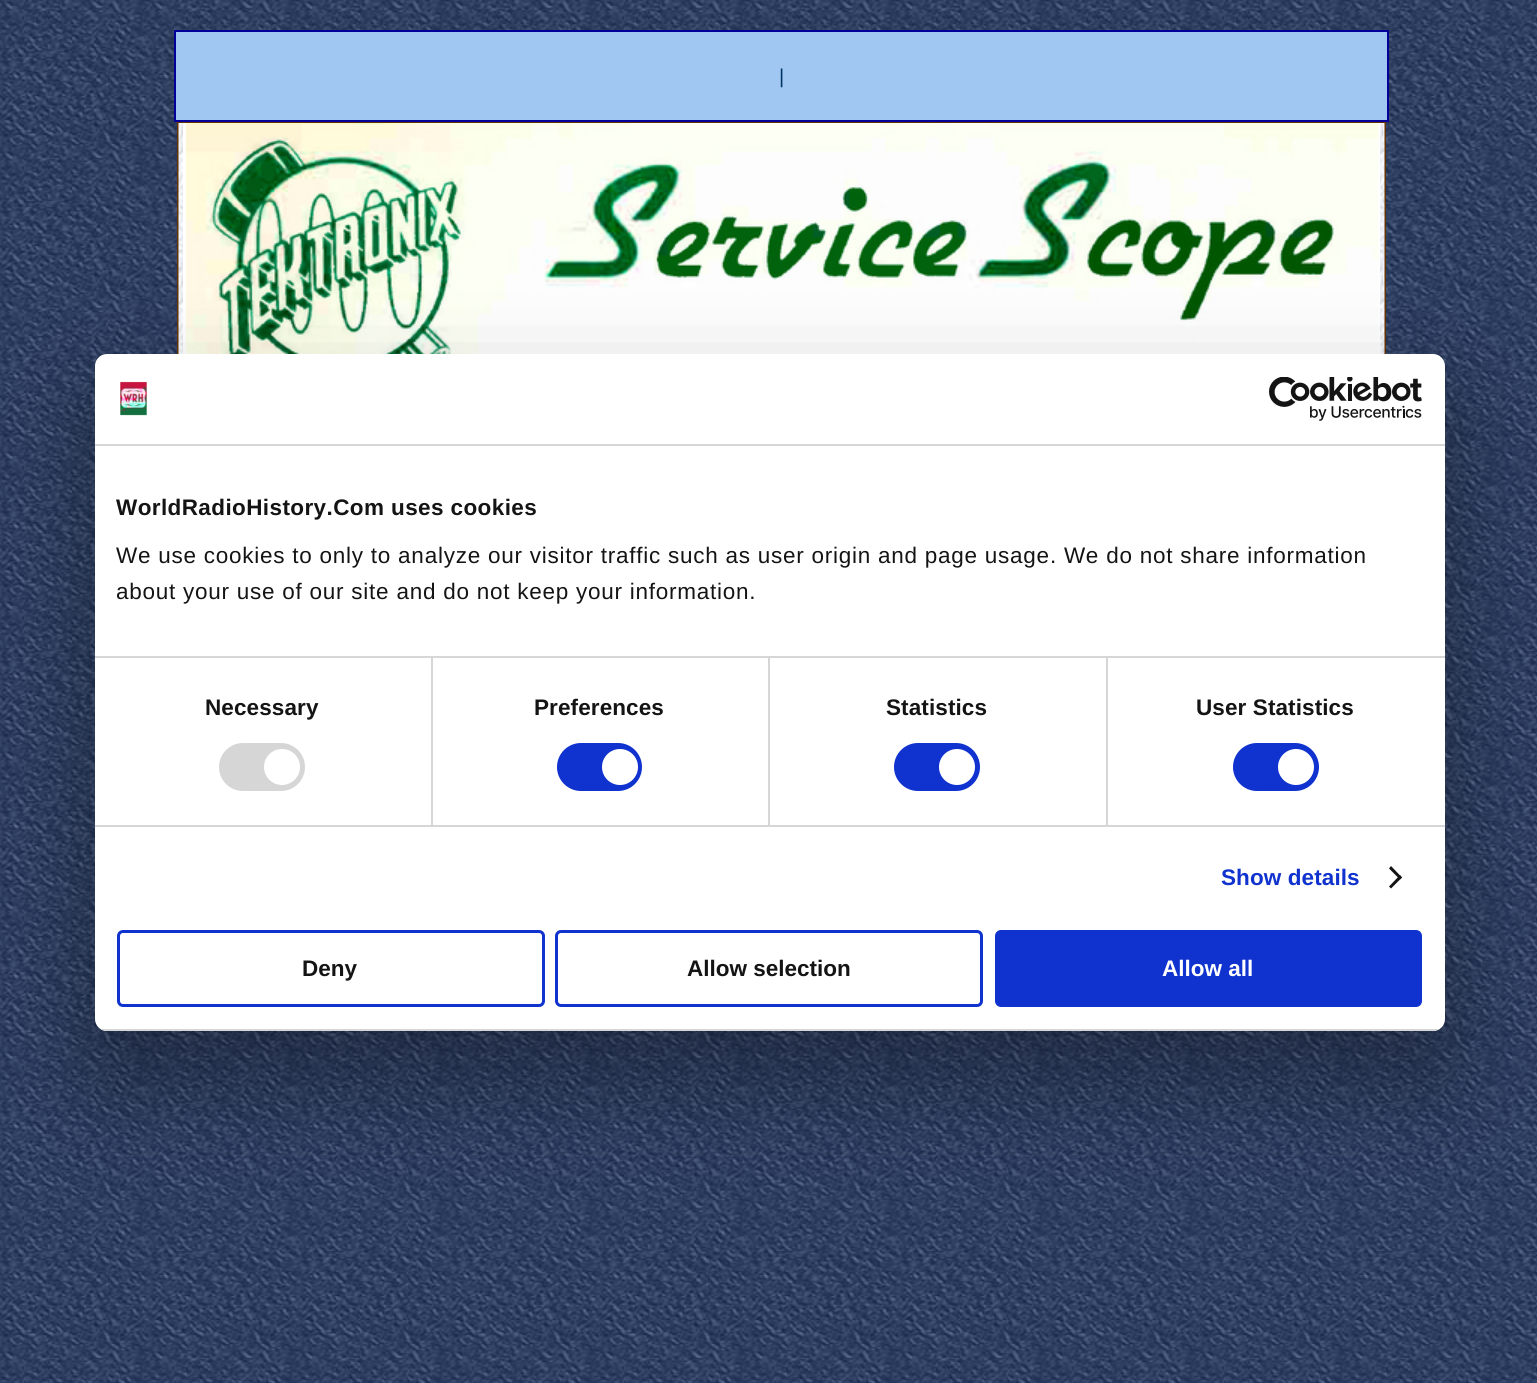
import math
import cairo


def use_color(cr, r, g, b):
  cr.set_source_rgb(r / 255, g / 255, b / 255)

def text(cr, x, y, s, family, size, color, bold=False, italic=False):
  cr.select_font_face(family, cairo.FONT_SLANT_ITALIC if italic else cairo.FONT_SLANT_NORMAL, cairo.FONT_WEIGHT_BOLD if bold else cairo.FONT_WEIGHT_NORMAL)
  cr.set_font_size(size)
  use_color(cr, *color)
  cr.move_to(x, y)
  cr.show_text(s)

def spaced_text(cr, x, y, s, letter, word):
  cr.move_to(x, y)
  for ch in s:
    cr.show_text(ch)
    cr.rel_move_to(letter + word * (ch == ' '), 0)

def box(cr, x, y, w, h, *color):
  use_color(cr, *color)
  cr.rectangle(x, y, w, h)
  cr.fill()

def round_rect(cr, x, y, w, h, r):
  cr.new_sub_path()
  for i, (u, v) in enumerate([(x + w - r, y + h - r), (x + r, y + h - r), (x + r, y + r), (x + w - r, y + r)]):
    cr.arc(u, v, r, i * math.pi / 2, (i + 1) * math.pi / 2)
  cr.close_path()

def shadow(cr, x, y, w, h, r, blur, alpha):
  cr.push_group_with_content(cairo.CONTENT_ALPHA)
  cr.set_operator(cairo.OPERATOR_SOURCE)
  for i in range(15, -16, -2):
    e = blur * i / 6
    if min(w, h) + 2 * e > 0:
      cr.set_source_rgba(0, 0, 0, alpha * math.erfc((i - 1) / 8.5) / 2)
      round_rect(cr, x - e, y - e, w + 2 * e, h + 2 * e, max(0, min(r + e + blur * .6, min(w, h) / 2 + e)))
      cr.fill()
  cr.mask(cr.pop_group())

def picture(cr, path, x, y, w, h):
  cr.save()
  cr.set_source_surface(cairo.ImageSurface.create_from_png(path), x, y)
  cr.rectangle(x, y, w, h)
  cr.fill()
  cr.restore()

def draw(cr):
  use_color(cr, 255, 255, 255)
  cr.paint()
  picture(cr, "img_01.png", 0, 0, 1537, 1383)
  use_color(cr, 160, 199, 241)
  cr.rectangle(175, 31, 1213, 90)
  cr.fill_preserve()
  use_color(cr, 0, 0, 153)
  cr.stroke()
  cr.rectangle(178, 123, 1207, 811)
  use_color(cr, 102, 51, 0)
  cr.stroke()
  picture(cr, "img_02.png", 178, 123, 1207, 231)
  box(cr, 183, 123, 1197, 231, 255, 255, 255)
  picture(cr, "img_03.png", 186, 123, 1193, 231)
  use_color(cr, 0, 0, 0)
  shadow(cr, 95, 402, 1350, 677, 12, 51, 0.3)
  use_color(cr, 255, 255, 255)
  round_rect(cr, 95, 354, 1350, 677, 12)
  cr.fill()
  box(cr, 95, 444, 1350, 2, 214, 214, 214)
  picture(cr, "img_04.png", 120, 381, 27, 35)
  picture(cr, "img_05.png", 1269, 377, 153, 44)
  box(cr, 431, 657, 2, 168, 214, 214, 214)
  box(cr, 768, 657, 2, 168, 214, 214, 214)
  box(cr, 1106, 657, 2, 168, 214, 214, 214)
  box(cr, 95, 656, 1350, 2, 214, 214, 214)
  box(cr, 95, 825, 1350, 2, 214, 214, 214)
  round_rect(cr, 219, 743, 86, 48, 24)
  cr.fill()
  use_color(cr, 255, 255, 255)
  cr.arc(282, 767, 18, 0, 2 * math.pi)
  cr.fill()
  use_color(cr, 16, 50, 207)
  round_rect(cr, 557, 743, 85, 48, 24)
  cr.fill()
  use_color(cr, 255, 255, 255)
  cr.arc(620, 767, 18, 0, 2 * math.pi)
  cr.fill()
  use_color(cr, 16, 50, 207)
  round_rect(cr, 894, 743, 86, 48, 24)
  cr.fill()
  use_color(cr, 255, 255, 255)
  cr.arc(957, 767, 18, 0, 2 * math.pi)
  cr.fill()
  use_color(cr, 16, 50, 207)
  round_rect(cr, 1233, 743, 86, 48, 24)
  cr.fill()
  use_color(cr, 255, 255, 255)
  cr.arc(1296, 767, 18, 0, 2 * math.pi)
  cr.fill()
  use_color(cr, 20, 20, 20)
  cr.new_path()
  cr.move_to(1391, 866)
  cr.line_to(1402, 877.5)
  cr.line_to(1400, 879.5)
  cr.line_to(1389, 868.5)
  cr.close_path()
  cr.fill()
  cr.new_path()
  cr.move_to(1400, 875)
  cr.line_to(1402, 877.5)
  cr.line_to(1391, 888.5)
  cr.line_to(1389, 886.5)
  cr.close_path()
  cr.fill()
  cr.save()
  round_rect(cr, 95, 354, 1350, 677, 12)
  cr.clip()
  box(cr, 95, 1029, 1350, 2, 214, 214, 214)
  cr.restore()
  round_rect(cr, 118.5, 931.5, 425, 74, 4.5)
  use_color(cr, 16, 50, 207)
  cr.set_line_width(3)
  cr.stroke()
  round_rect(cr, 556.5, 931.5, 425, 74, 4.5)
  cr.stroke()
  round_rect(cr, 996.5, 931.5, 424, 74, 4.5)
  cr.fill_preserve()
  cr.stroke()
  text(cr, 779, 83, "|", "Liberation Sans", 20, (0, 51, 102))
  cr.select_font_face("Liberation Sans", cairo.FONT_SLANT_NORMAL, cairo.FONT_WEIGHT_BOLD)
  cr.set_font_size(22.5)
  use_color(cr, 20, 20, 20)
  spaced_text(cr, 116, 515, "WorldRadioHistory.Com uses cookies", 0.4, 0)
  cr.select_font_face("Liberation Sans")
  spaced_text(cr, 116, 563, "We use cookies to only to analyze our visitor traffic such as user origin and page usage. We do not share information", 0.75, 0)
  spaced_text(cr, 116, 599, "about your use of our site and do not keep your information.", 0.75, 0)
  cr.select_font_face("Liberation Sans", cairo.FONT_SLANT_NORMAL, cairo.FONT_WEIGHT_BOLD)
  spaced_text(cr, 205, 715, "Necessary", 0.1, 0)
  spaced_text(cr, 534, 715, "Preferences", 0.1, 0)
  spaced_text(cr, 886, 715, "Statistics", 0.1, 0)
  spaced_text(cr, 1196, 715, "User Statistics", 0.1, 0)
  use_color(cr, 16, 50, 207)
  spaced_text(cr, 1221, 885, "Show details", 0.1, 0)
  text(cr, 302, 976, "Deny", "Liberation Sans", 22.5, (20, 20, 20), bold=True)
  text(cr, 687, 976, "Allow selection", "Liberation Sans", 22.5, (20, 20, 20), bold=True)
  text(cr, 1162, 976, "Allow all", "Liberation Sans", 22.5, (255, 255, 255), bold=True)


surface = cairo.ImageSurface(cairo.FORMAT_RGB24, 1537, 1383)
cr = cairo.Context(surface)
options = cairo.FontOptions()
options.set_hint_metrics(cairo.HINT_METRICS_OFF)
options.set_hint_style(cairo.HINT_STYLE_NONE)
cr.set_font_options(options)
cr.set_miter_limit(4)
draw(cr)
surface.write_to_png("out.png")
